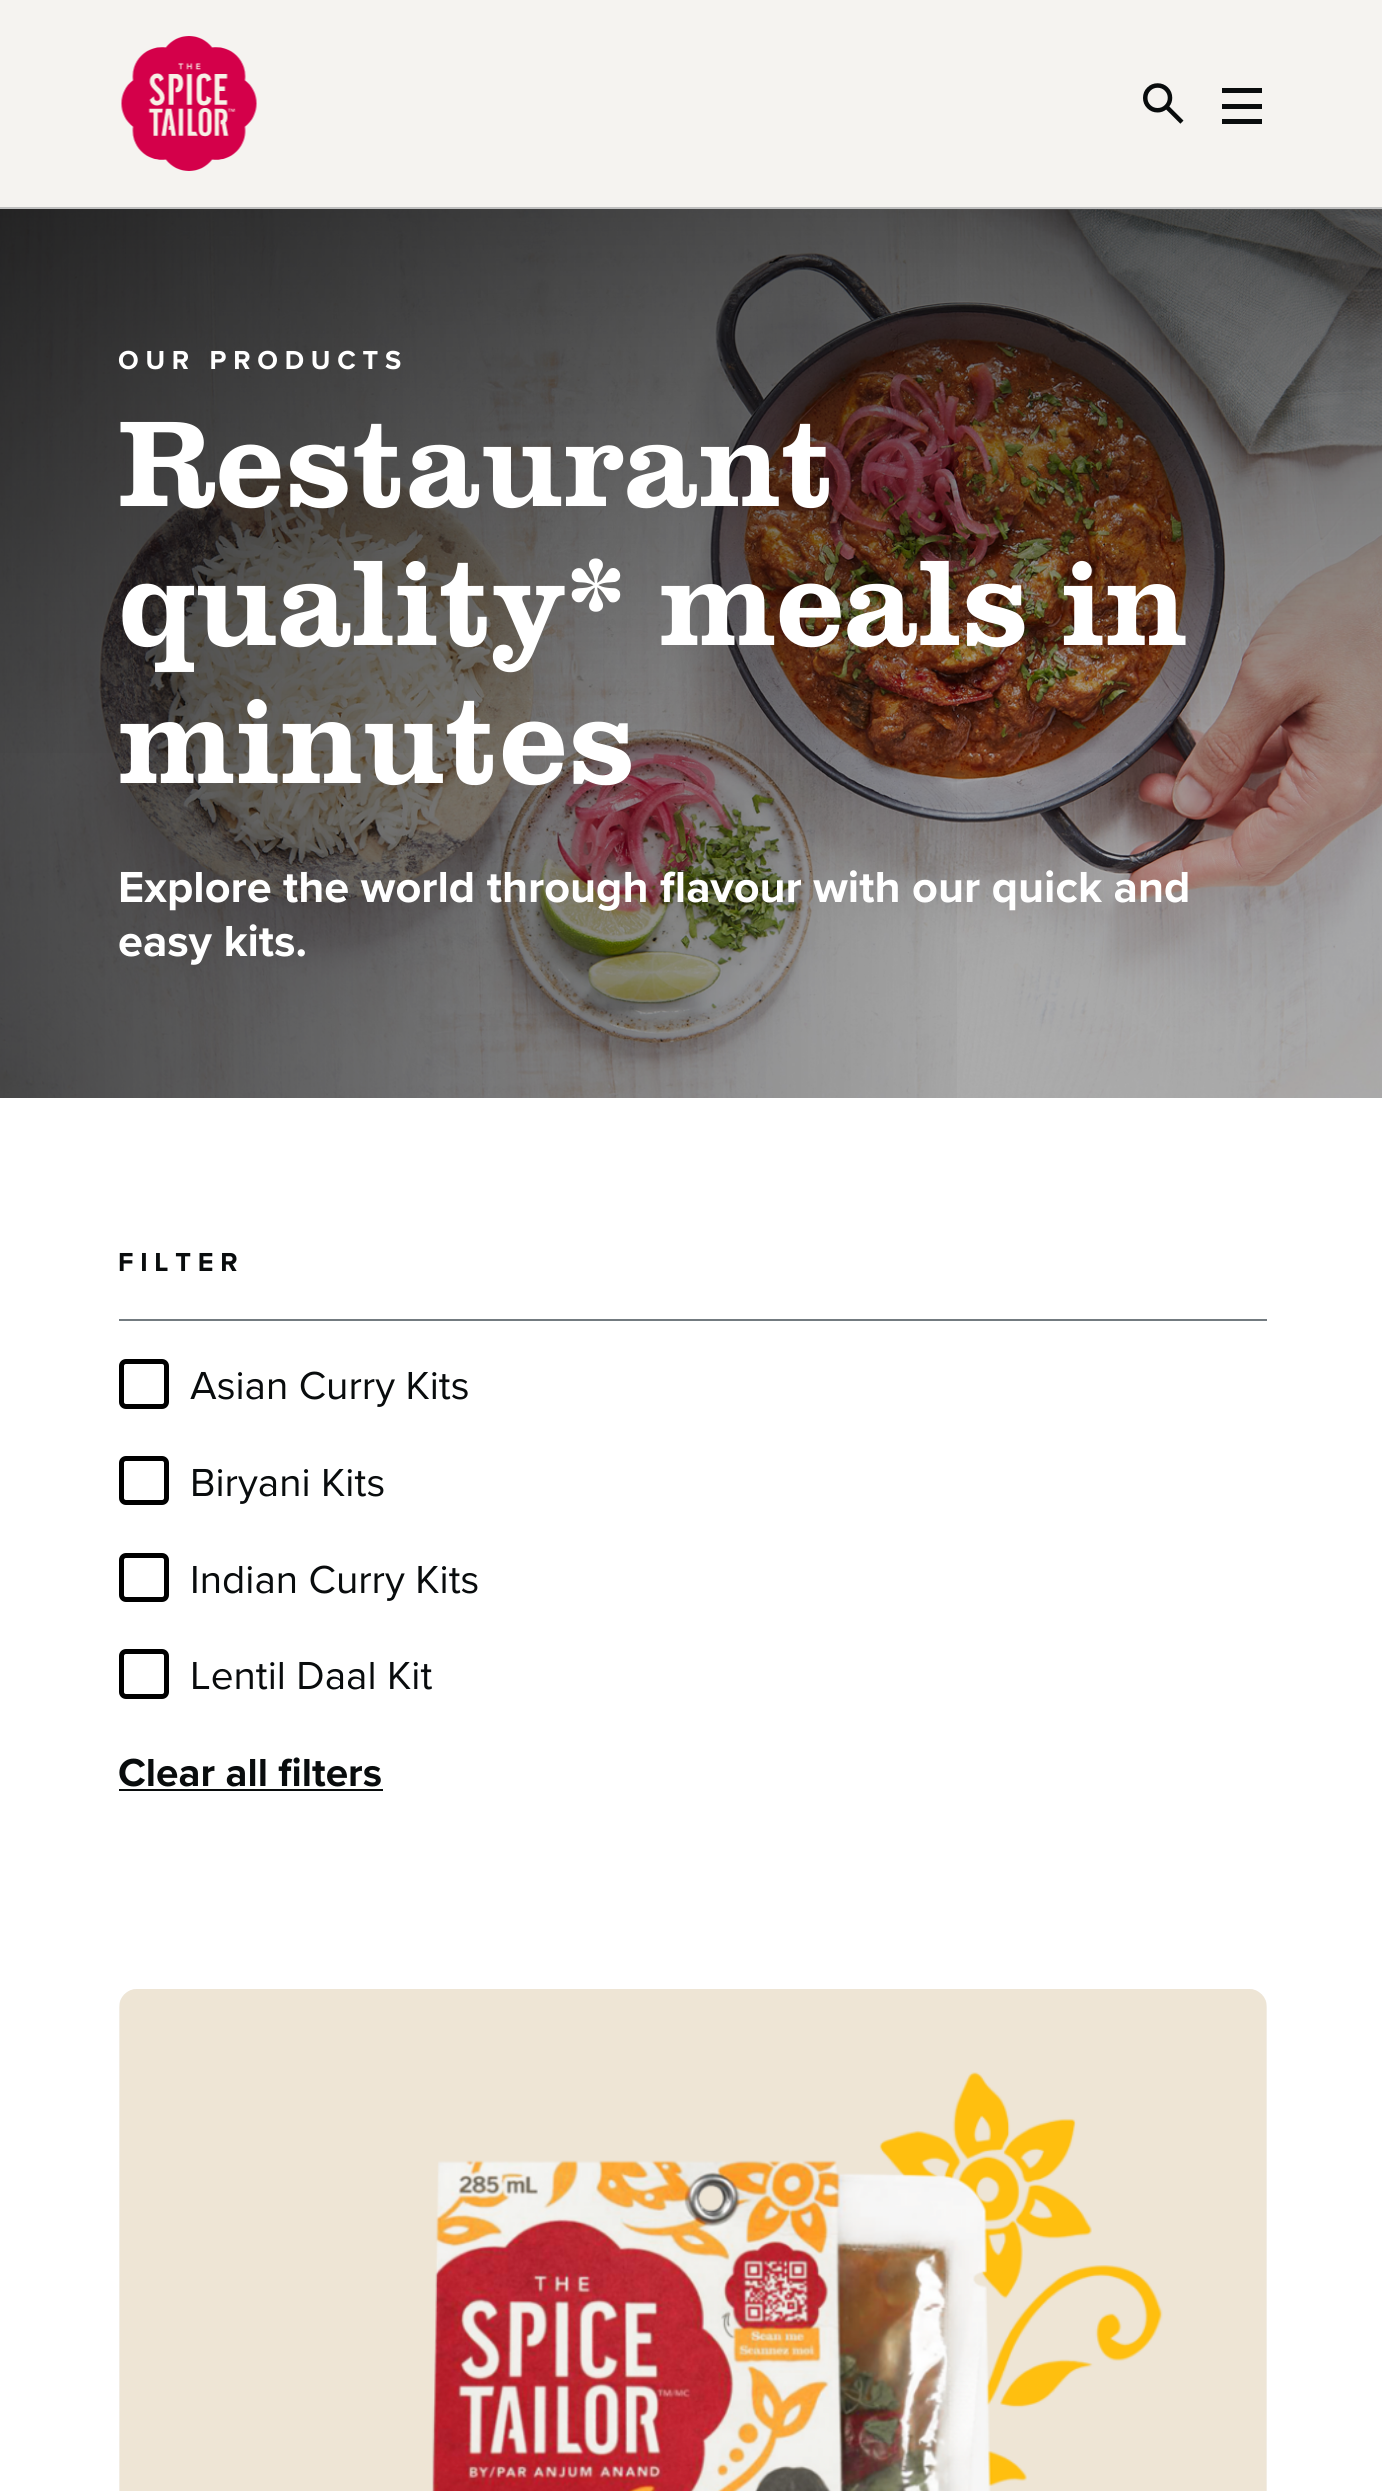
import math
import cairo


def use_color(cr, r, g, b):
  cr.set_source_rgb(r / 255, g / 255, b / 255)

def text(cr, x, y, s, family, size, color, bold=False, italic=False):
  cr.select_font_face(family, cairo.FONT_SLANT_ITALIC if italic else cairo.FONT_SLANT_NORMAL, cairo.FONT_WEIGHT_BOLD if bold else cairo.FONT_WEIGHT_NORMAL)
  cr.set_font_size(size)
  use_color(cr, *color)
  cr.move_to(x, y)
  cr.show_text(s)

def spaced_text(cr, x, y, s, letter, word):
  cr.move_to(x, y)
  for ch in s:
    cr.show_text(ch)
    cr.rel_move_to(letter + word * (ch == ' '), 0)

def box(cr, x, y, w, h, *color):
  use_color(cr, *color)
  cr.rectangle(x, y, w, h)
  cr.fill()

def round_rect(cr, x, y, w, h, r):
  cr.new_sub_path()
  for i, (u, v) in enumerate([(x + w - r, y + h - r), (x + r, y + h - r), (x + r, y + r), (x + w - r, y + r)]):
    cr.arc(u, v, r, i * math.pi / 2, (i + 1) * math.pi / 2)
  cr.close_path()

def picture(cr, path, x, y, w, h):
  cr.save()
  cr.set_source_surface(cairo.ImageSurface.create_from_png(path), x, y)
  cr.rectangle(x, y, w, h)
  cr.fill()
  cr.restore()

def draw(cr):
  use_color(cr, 255, 255, 255)
  cr.paint()
  box(cr, 0, 0, 1382, 207, 245, 243, 240)
  picture(cr, "img_01.png", 121, 36, 136, 135)
  picture(cr, "img_02.png", 1143, 83, 41, 41)
  box(cr, 1222, 104, 40, 5, 9, 12, 13)
  box(cr, 1222, 88, 40, 5, 9, 12, 13)
  box(cr, 1222, 119, 40, 5, 9, 12, 13)
  box(cr, 0, 207, 1382, 2, 191, 191, 191)
  box(cr, 0, 209, 1382, 1, 179, 179, 179)
  picture(cr, "img_03.png", 0, 209, 1382, 889)
  gradient = cairo.LinearGradient(692, 1098, 692, 209)
  gradient.add_color_stop_rgba(0.36, 0, 0, 0, 0)
  gradient.add_color_stop_rgba(1, 0, 0, 0, 0.5)
  cr.set_source(gradient)
  cr.rectangle(0, 209, 1382, 544)
  cr.fill()
  gradient = cairo.LinearGradient(0, 654, 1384, 654)
  gradient.add_color_stop_rgba(0, 0, 0, 0, 0.55)
  gradient.add_color_stop_rgba(0.72, 0, 0, 0, 0)
  cr.set_source(gradient)
  cr.rectangle(0, 209, 957, 889)
  cr.fill()
  box(cr, 119, 1319, 1148, 2, 115, 123, 128)
  round_rect(cr, 121.5, 1361.5, 45, 45, 4.5)
  use_color(cr, 0, 0, 0)
  cr.set_line_width(5)
  cr.stroke()
  round_rect(cr, 121.5, 1458.5, 45, 44, 4.5)
  cr.stroke()
  round_rect(cr, 121.5, 1555.5, 45, 44, 4.5)
  cr.stroke()
  round_rect(cr, 121.5, 1651.5, 45, 45, 4.5)
  cr.stroke()
  box(cr, 119, 1789, 264, 2, 9, 12, 13)
  use_color(cr, 245, 243, 240)
  round_rect(cr, 119, 1989, 1148, 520, 18)
  cr.fill()
  picture(cr, "img_04.png", 119, 1989, 1148, 502)
  cr.select_font_face("Proxima Nova", cairo.FONT_SLANT_NORMAL, cairo.FONT_WEIGHT_BOLD)
  cr.set_font_size(27)
  use_color(cr, 255, 255, 255)
  spaced_text(cr, 118, 369, "OUR PRODUCTS", 6.75, 0)
  text(cr, 118, 506, "Restaurant", "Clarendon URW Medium", 126, (255, 255, 255))
  text(cr, 118, 645, "quality* meals in", "Clarendon URW Medium", 126, (255, 255, 255))
  text(cr, 118, 783, "minutes", "Clarendon URW Medium", 126, (255, 255, 255))
  text(cr, 118, 902, "Explore the world through flavour with our quick and", "Proxima Nova", 45, (255, 255, 255), bold=True)
  text(cr, 118, 956, "easy kits.", "Proxima Nova", 45, (255, 255, 255), bold=True)
  cr.set_font_size(27)
  use_color(cr, 9, 12, 13)
  spaced_text(cr, 118, 1271, "FILTER", 6.75, 0)
  text(cr, 190, 1399, "Asian Curry Kits", "Proxima Nova", 40.5, (9, 12, 13))
  text(cr, 190, 1496, "Biryani Kits", "Proxima Nova", 40.5, (9, 12, 13))
  text(cr, 190, 1593, "Indian Curry Kits", "Proxima Nova", 40.5, (9, 12, 13))
  text(cr, 190, 1689, "Lentil Daal Kit", "Proxima Nova", 40.5, (9, 12, 13))
  text(cr, 118, 1786, "Clear all filters", "Proxima Nova", 40.5, (9, 12, 13), bold=True)


surface = cairo.ImageSurface(cairo.FORMAT_RGB24, 1382, 2491)
cr = cairo.Context(surface)
options = cairo.FontOptions()
options.set_hint_metrics(cairo.HINT_METRICS_OFF)
options.set_hint_style(cairo.HINT_STYLE_NONE)
cr.set_font_options(options)
cr.set_miter_limit(4)
draw(cr)
surface.write_to_png("out.png")
